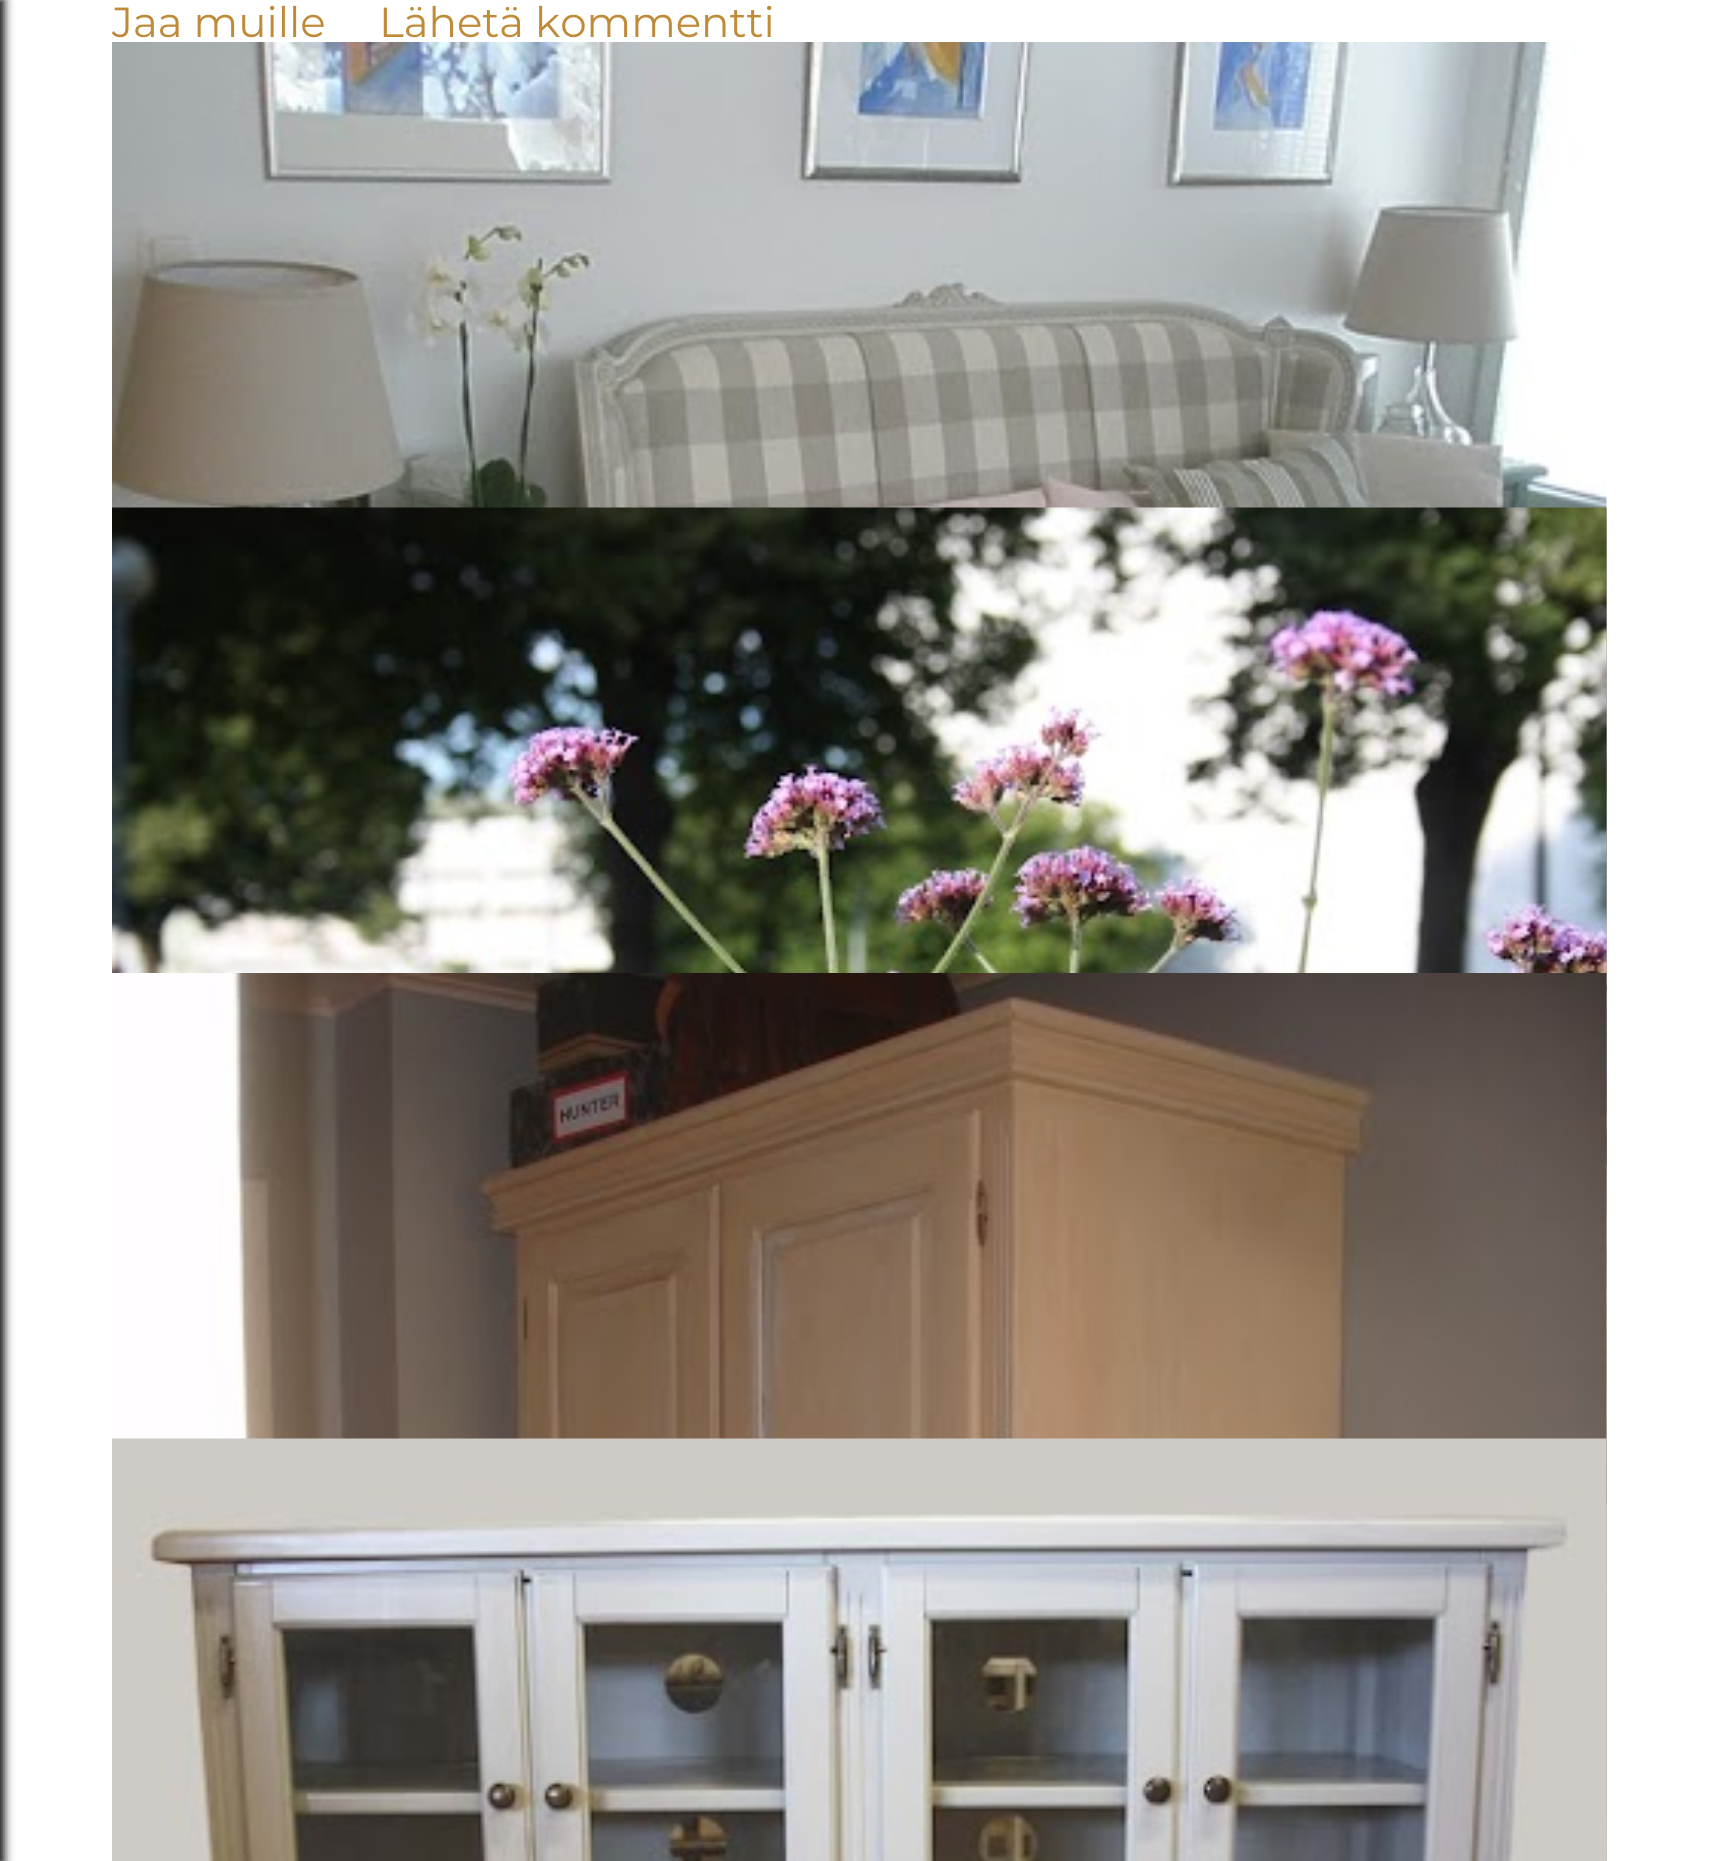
import math
import cairo


def use_color(cr, r, g, b):
  cr.set_source_rgb(r / 255, g / 255, b / 255)

def text(cr, x, y, s, family, size, color, bold=False, italic=False):
  cr.select_font_face(family, cairo.FONT_SLANT_ITALIC if italic else cairo.FONT_SLANT_NORMAL, cairo.FONT_WEIGHT_BOLD if bold else cairo.FONT_WEIGHT_NORMAL)
  cr.set_font_size(size)
  use_color(cr, *color)
  cr.move_to(x, y)
  cr.show_text(s)

def round_rect(cr, x, y, w, h, r):
  cr.new_sub_path()
  for i, (u, v) in enumerate([(x + w - r, y + h - r), (x + r, y + h - r), (x + r, y + r), (x + w - r, y + r)]):
    cr.arc(u, v, r, i * math.pi / 2, (i + 1) * math.pi / 2)
  cr.close_path()

def shadow(cr, x, y, w, h, r, blur, alpha):
  cr.push_group_with_content(cairo.CONTENT_ALPHA)
  cr.set_operator(cairo.OPERATOR_SOURCE)
  for i in range(15, -16, -2):
    e = blur * i / 6
    if min(w, h) + 2 * e > 0:
      cr.set_source_rgba(0, 0, 0, alpha * math.erfc((i - 1) / 8.5) / 2)
      round_rect(cr, x - e, y - e, w + 2 * e, h + 2 * e, max(0, min(r + e + blur * .6, min(w, h) / 2 + e)))
      cr.fill()
  cr.mask(cr.pop_group())

def picture(cr, path, x, y, w, h):
  cr.save()
  cr.set_source_surface(cairo.ImageSurface.create_from_png(path), x, y)
  cr.rectangle(x, y, w, h)
  cr.fill()
  cr.restore()

def draw(cr):
  use_color(cr, 255, 255, 255)
  cr.paint()
  use_color(cr, 0, 0, 0)
  shadow(cr, -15, 0, 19, 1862, 0, 5, 1)
  picture(cr, "img_01.png", 112, 42, 1495, 1124)
  picture(cr, "img_02.png", 112, 507, 1495, 998)
  picture(cr, "img_03.png", 112, 973, 1495, 888)
  picture(cr, "img_04.png", 112, 1438, 1495, 423)
  text(cr, 112, 37, "Jaa muille", "Montserrat", 42, (191, 139, 56))
  text(cr, 379, 37, "Lähetä kommentti", "Montserrat", 42, (191, 139, 56))


surface = cairo.ImageSurface(cairo.FORMAT_RGB24, 1717, 1861)
cr = cairo.Context(surface)
options = cairo.FontOptions()
options.set_hint_metrics(cairo.HINT_METRICS_OFF)
options.set_hint_style(cairo.HINT_STYLE_NONE)
cr.set_font_options(options)
cr.set_miter_limit(4)
draw(cr)
surface.write_to_png("out.png")
